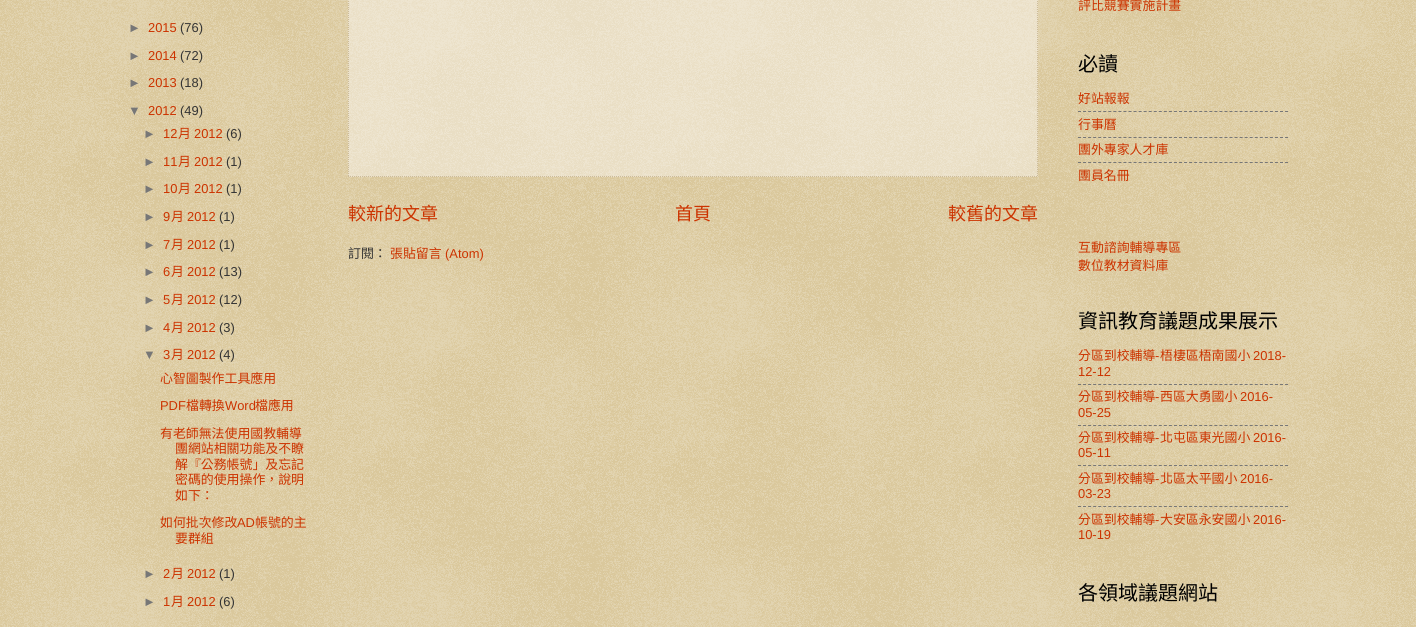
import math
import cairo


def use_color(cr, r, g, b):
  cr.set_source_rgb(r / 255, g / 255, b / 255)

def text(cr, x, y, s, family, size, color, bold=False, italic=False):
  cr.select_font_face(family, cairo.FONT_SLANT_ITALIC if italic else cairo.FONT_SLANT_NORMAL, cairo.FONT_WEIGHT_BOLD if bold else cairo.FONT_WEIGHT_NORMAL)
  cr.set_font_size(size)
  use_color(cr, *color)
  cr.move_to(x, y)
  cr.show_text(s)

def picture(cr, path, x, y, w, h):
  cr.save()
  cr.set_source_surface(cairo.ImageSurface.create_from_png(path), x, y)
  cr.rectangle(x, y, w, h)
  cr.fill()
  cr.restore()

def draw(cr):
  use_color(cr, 192, 161, 84)
  cr.paint()
  picture(cr, "img_01.png", 0, 0, 1416, 627)
  cr.set_source_rgba(1, 1, 1, 0.4)
  cr.rectangle(348, 0, 690, 177)
  cr.fill()
  cr.new_path()
  cr.move_to(1037.5, -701)
  cr.line_to(1037.5, 177)
  use_color(cr, 204, 187, 153)
  cr.set_line_width(1)
  cr.set_dash([1, 1])
  cr.stroke()
  cr.new_path()
  cr.move_to(348, 176.5)
  cr.line_to(1038, 176.5)
  cr.stroke()
  cr.new_path()
  cr.move_to(348.5, -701)
  cr.line_to(348.5, 177)
  cr.stroke()
  cr.new_path()
  cr.move_to(1078, 111.5)
  cr.line_to(1288, 111.5)
  use_color(cr, 119, 119, 119)
  cr.set_dash([3, 2.05])
  cr.stroke()
  cr.new_path()
  cr.move_to(1078, 137.5)
  cr.line_to(1288, 137.5)
  cr.stroke()
  cr.new_path()
  cr.move_to(1078, 162.5)
  cr.line_to(1288, 162.5)
  cr.stroke()
  cr.new_path()
  cr.move_to(1078, 384.5)
  cr.line_to(1288, 384.5)
  cr.stroke()
  cr.new_path()
  cr.move_to(1078, 425.5)
  cr.line_to(1288, 425.5)
  cr.stroke()
  cr.new_path()
  cr.move_to(1078, 465.5)
  cr.line_to(1288, 465.5)
  cr.stroke()
  cr.new_path()
  cr.move_to(1078, 506.5)
  cr.line_to(1288, 506.5)
  cr.stroke()
  text(cr, 128, 32, "►", "Liberation Sans", 12.9, (119, 119, 119))
  text(cr, 148, 32, "2015", "Liberation Sans", 12.9, (204, 51, 0))
  text(cr, 180, 32, "(76)", "Liberation Sans", 12.9, (51, 51, 51))
  text(cr, 128, 60, "►", "Liberation Sans", 12.9, (119, 119, 119))
  text(cr, 148, 60, "2014", "Liberation Sans", 12.9, (204, 51, 0))
  text(cr, 180, 60, "(72)", "Liberation Sans", 12.9, (51, 51, 51))
  text(cr, 128, 87, "►", "Liberation Sans", 12.9, (119, 119, 119))
  text(cr, 148, 87, "2013", "Liberation Sans", 12.9, (204, 51, 0))
  text(cr, 180, 87, "(18)", "Liberation Sans", 12.9, (51, 51, 51))
  text(cr, 128, 115, "▼", "Liberation Sans", 12.9, (119, 119, 119))
  text(cr, 148, 115, "2012", "Liberation Sans", 12.9, (204, 51, 0))
  text(cr, 180, 115, "(49)", "Liberation Sans", 12.9, (51, 51, 51))
  text(cr, 143, 138, "►", "Liberation Sans", 12.9, (119, 119, 119))
  text(cr, 163, 138, "12", "Liberation Sans", 12.9, (204, 51, 0))
  text(cr, 178, 138, "月", "Noto Sans CJK TC", 12.9, (204, 51, 0))
  text(cr, 194, 138, "2012", "Liberation Sans", 12.9, (204, 51, 0))
  text(cr, 226, 138, "(6)", "Liberation Sans", 12.9, (51, 51, 51))
  text(cr, 143, 166, "►", "Liberation Sans", 12.9, (119, 119, 119))
  text(cr, 163, 166, "11", "Liberation Sans", 12.9, (204, 51, 0))
  text(cr, 178, 166, "月", "Noto Sans CJK TC", 12.9, (204, 51, 0))
  text(cr, 194, 166, "2012", "Liberation Sans", 12.9, (204, 51, 0))
  text(cr, 226, 166, "(1)", "Liberation Sans", 12.9, (51, 51, 51))
  text(cr, 143, 193, "►", "Liberation Sans", 12.9, (119, 119, 119))
  text(cr, 163, 193, "10", "Liberation Sans", 12.9, (204, 51, 0))
  text(cr, 178, 193, "月", "Noto Sans CJK TC", 12.9, (204, 51, 0))
  text(cr, 194, 193, "2012", "Liberation Sans", 12.9, (204, 51, 0))
  text(cr, 226, 193, "(1)", "Liberation Sans", 12.9, (51, 51, 51))
  text(cr, 143, 221, "►", "Liberation Sans", 12.9, (119, 119, 119))
  text(cr, 163, 221, "9", "Liberation Sans", 12.9, (204, 51, 0))
  text(cr, 171, 221, "月", "Noto Sans CJK TC", 12.9, (204, 51, 0))
  text(cr, 187, 221, "2012", "Liberation Sans", 12.9, (204, 51, 0))
  text(cr, 219, 221, "(1)", "Liberation Sans", 12.9, (51, 51, 51))
  text(cr, 143, 249, "►", "Liberation Sans", 12.9, (119, 119, 119))
  text(cr, 163, 249, "7", "Liberation Sans", 12.9, (204, 51, 0))
  text(cr, 171, 249, "月", "Noto Sans CJK TC", 12.9, (204, 51, 0))
  text(cr, 187, 249, "2012", "Liberation Sans", 12.9, (204, 51, 0))
  text(cr, 219, 249, "(1)", "Liberation Sans", 12.9, (51, 51, 51))
  text(cr, 143, 276, "►", "Liberation Sans", 12.9, (119, 119, 119))
  text(cr, 163, 276, "6", "Liberation Sans", 12.9, (204, 51, 0))
  text(cr, 171, 276, "月", "Noto Sans CJK TC", 12.9, (204, 51, 0))
  text(cr, 187, 276, "2012", "Liberation Sans", 12.9, (204, 51, 0))
  text(cr, 219, 276, "(13)", "Liberation Sans", 12.9, (51, 51, 51))
  text(cr, 143, 304, "►", "Liberation Sans", 12.9, (119, 119, 119))
  text(cr, 163, 304, "5", "Liberation Sans", 12.9, (204, 51, 0))
  text(cr, 171, 304, "月", "Noto Sans CJK TC", 12.9, (204, 51, 0))
  text(cr, 187, 304, "2012", "Liberation Sans", 12.9, (204, 51, 0))
  text(cr, 219, 304, "(12)", "Liberation Sans", 12.9, (51, 51, 51))
  text(cr, 143, 332, "►", "Liberation Sans", 12.9, (119, 119, 119))
  text(cr, 163, 332, "4", "Liberation Sans", 12.9, (204, 51, 0))
  text(cr, 171, 332, "月", "Noto Sans CJK TC", 12.9, (204, 51, 0))
  text(cr, 187, 332, "2012", "Liberation Sans", 12.9, (204, 51, 0))
  text(cr, 219, 332, "(3)", "Liberation Sans", 12.9, (51, 51, 51))
  text(cr, 143, 359, "▼", "Liberation Sans", 12.9, (119, 119, 119))
  text(cr, 163, 359, "3", "Liberation Sans", 12.9, (204, 51, 0))
  text(cr, 171, 359, "月", "Noto Sans CJK TC", 12.9, (204, 51, 0))
  text(cr, 187, 359, "2012", "Liberation Sans", 12.9, (204, 51, 0))
  text(cr, 219, 359, "(4)", "Liberation Sans", 12.9, (51, 51, 51))
  text(cr, 160, 383, "心智圖製作工具應用", "Noto Sans CJK TC", 12.9, (204, 51, 0))
  text(cr, 160, 410, "PDF", "Liberation Sans", 12.9, (204, 51, 0))
  text(cr, 186, 410, "檔轉換", "Noto Sans CJK TC", 12.9, (204, 51, 0))
  text(cr, 225, 410, "Word", "Liberation Sans", 12.9, (204, 51, 0))
  text(cr, 255, 410, "檔應用", "Noto Sans CJK TC", 12.9, (204, 51, 0))
  text(cr, 160, 438, "有老師無法使用國教輔導", "Noto Sans CJK TC", 12.9, (204, 51, 0))
  text(cr, 175, 453, "團網站相關功能及不瞭", "Noto Sans CJK TC", 12.9, (204, 51, 0))
  text(cr, 175, 469, "解『公務帳號」及忘記", "Noto Sans CJK TC", 12.9, (204, 51, 0))
  text(cr, 175, 484, "密碼的使用操作，說明", "Noto Sans CJK TC", 12.9, (204, 51, 0))
  text(cr, 175, 500, "如下：", "Noto Sans CJK TC", 12.9, (204, 51, 0))
  text(cr, 160, 527, "如何批次修改", "Noto Sans CJK TC", 12.9, (204, 51, 0))
  text(cr, 237, 527, "AD", "Liberation Sans", 12.9, (204, 51, 0))
  text(cr, 255, 527, "帳號的主", "Noto Sans CJK TC", 12.9, (204, 51, 0))
  text(cr, 175, 543, "要群組", "Noto Sans CJK TC", 12.9, (204, 51, 0))
  text(cr, 143, 578, "►", "Liberation Sans", 12.9, (119, 119, 119))
  text(cr, 163, 578, "2", "Liberation Sans", 12.9, (204, 51, 0))
  text(cr, 171, 578, "月", "Noto Sans CJK TC", 12.9, (204, 51, 0))
  text(cr, 187, 578, "2012", "Liberation Sans", 12.9, (204, 51, 0))
  text(cr, 219, 578, "(1)", "Liberation Sans", 12.9, (51, 51, 51))
  text(cr, 143, 606, "►", "Liberation Sans", 12.9, (119, 119, 119))
  text(cr, 163, 606, "1", "Liberation Sans", 12.9, (204, 51, 0))
  text(cr, 171, 606, "月", "Noto Sans CJK TC", 12.9, (204, 51, 0))
  text(cr, 187, 606, "2012", "Liberation Sans", 12.9, (204, 51, 0))
  text(cr, 219, 606, "(6)", "Liberation Sans", 12.9, (51, 51, 51))
  text(cr, 348, 220, "較新的文章", "Noto Sans CJK TC", 18, (204, 51, 0))
  text(cr, 675, 220, "首頁", "Noto Sans CJK TC", 18, (204, 51, 0))
  text(cr, 948, 220, "較舊的文章", "Noto Sans CJK TC", 18, (204, 51, 0))
  text(cr, 348, 258, "訂閱：", "Noto Sans CJK TC", 12.9, (51, 51, 51))
  text(cr, 390, 258, "張貼留言", "Noto Sans CJK TC", 12.9, (204, 51, 0))
  text(cr, 445, 258, "(Atom)", "Liberation Sans", 12.9, (204, 51, 0))
  text(cr, 1078, 10, "評比競賽實施計畫", "Noto Sans CJK TC", 12.9, (204, 51, 0))
  text(cr, 1078, 71, "必讀", "Noto Sans CJK TC", 20, (0, 0, 0))
  text(cr, 1078, 103, "好站報報", "Noto Sans CJK TC", 12.9, (204, 51, 0))
  text(cr, 1078, 129, "行事曆", "Noto Sans CJK TC", 12.9, (204, 51, 0))
  text(cr, 1078, 154, "團外專家人才庫", "Noto Sans CJK TC", 12.9, (204, 51, 0))
  text(cr, 1078, 180, "團員名冊", "Noto Sans CJK TC", 12.9, (204, 51, 0))
  text(cr, 1078, 252, "互動諮詢輔導專區", "Noto Sans CJK TC", 12.9, (204, 51, 0))
  text(cr, 1078, 270, "數位教材資料庫", "Noto Sans CJK TC", 12.9, (204, 51, 0))
  text(cr, 1078, 328, "資訊教育議題成果展示", "Noto Sans CJK TC", 20, (0, 0, 0))
  text(cr, 1078, 360, "分區到校輔導", "Noto Sans CJK TC", 12.9, (204, 51, 0))
  text(cr, 1155, 360, "-", "Liberation Sans", 12.9, (204, 51, 0))
  text(cr, 1160, 360, "梧棲區梧南國小", "Noto Sans CJK TC", 12.9, (204, 51, 0))
  text(cr, 1253, 360, "2018-", "Liberation Sans", 12.9, (204, 51, 0))
  text(cr, 1078, 376, "12-12", "Liberation Sans", 12.9, (204, 51, 0))
  text(cr, 1078, 401, "分區到校輔導", "Noto Sans CJK TC", 12.9, (204, 51, 0))
  text(cr, 1155, 401, "-", "Liberation Sans", 12.9, (204, 51, 0))
  text(cr, 1160, 401, "西區大勇國小", "Noto Sans CJK TC", 12.9, (204, 51, 0))
  text(cr, 1240, 401, "2016-", "Liberation Sans", 12.9, (204, 51, 0))
  text(cr, 1078, 417, "05-25", "Liberation Sans", 12.9, (204, 51, 0))
  text(cr, 1078, 442, "分區到校輔導", "Noto Sans CJK TC", 12.9, (204, 51, 0))
  text(cr, 1155, 442, "-", "Liberation Sans", 12.9, (204, 51, 0))
  text(cr, 1160, 442, "北屯區東光國小", "Noto Sans CJK TC", 12.9, (204, 51, 0))
  text(cr, 1253, 442, "2016-", "Liberation Sans", 12.9, (204, 51, 0))
  text(cr, 1078, 457, "05-11", "Liberation Sans", 12.9, (204, 51, 0))
  text(cr, 1078, 483, "分區到校輔導", "Noto Sans CJK TC", 12.9, (204, 51, 0))
  text(cr, 1155, 483, "-", "Liberation Sans", 12.9, (204, 51, 0))
  text(cr, 1160, 483, "北區太平國小", "Noto Sans CJK TC", 12.9, (204, 51, 0))
  text(cr, 1240, 483, "2016-", "Liberation Sans", 12.9, (204, 51, 0))
  text(cr, 1078, 498, "03-23", "Liberation Sans", 12.9, (204, 51, 0))
  text(cr, 1078, 524, "分區到校輔導", "Noto Sans CJK TC", 12.9, (204, 51, 0))
  text(cr, 1155, 524, "-", "Liberation Sans", 12.9, (204, 51, 0))
  text(cr, 1160, 524, "大安區永安國小", "Noto Sans CJK TC", 12.9, (204, 51, 0))
  text(cr, 1253, 524, "2016-", "Liberation Sans", 12.9, (204, 51, 0))
  text(cr, 1078, 539, "10-19", "Liberation Sans", 12.9, (204, 51, 0))
  text(cr, 1078, 600, "各領域議題網站", "Noto Sans CJK TC", 20, (0, 0, 0))


surface = cairo.ImageSurface(cairo.FORMAT_RGB24, 1416, 627)
cr = cairo.Context(surface)
options = cairo.FontOptions()
options.set_hint_metrics(cairo.HINT_METRICS_OFF)
options.set_hint_style(cairo.HINT_STYLE_NONE)
cr.set_font_options(options)
cr.set_miter_limit(4)
draw(cr)
surface.write_to_png("out.png")
